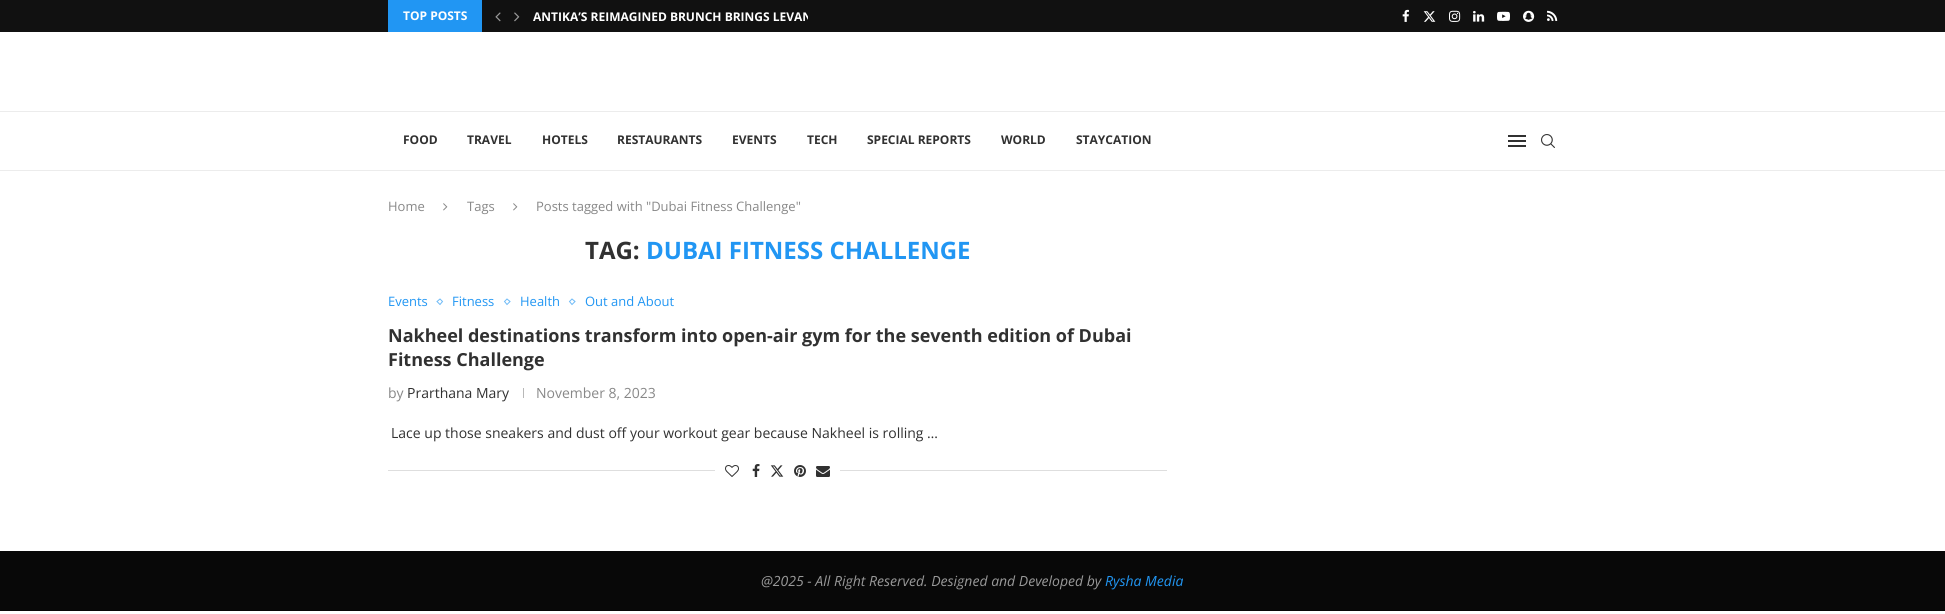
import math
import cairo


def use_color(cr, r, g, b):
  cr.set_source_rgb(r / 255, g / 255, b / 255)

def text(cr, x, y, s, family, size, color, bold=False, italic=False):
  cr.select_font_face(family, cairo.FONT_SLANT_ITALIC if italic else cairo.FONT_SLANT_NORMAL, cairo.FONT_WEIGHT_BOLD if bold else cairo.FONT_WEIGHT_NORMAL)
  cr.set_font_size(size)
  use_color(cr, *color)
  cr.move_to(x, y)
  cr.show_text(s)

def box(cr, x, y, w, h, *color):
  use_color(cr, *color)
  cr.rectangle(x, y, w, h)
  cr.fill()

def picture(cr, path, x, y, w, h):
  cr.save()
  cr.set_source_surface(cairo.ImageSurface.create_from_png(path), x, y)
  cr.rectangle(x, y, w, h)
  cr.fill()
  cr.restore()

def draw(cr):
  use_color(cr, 255, 255, 255)
  cr.paint()
  box(cr, 0, 0, 1945, 32, 17, 17, 17)
  box(cr, 388, 0, 94, 32, 33, 150, 243)
  picture(cr, "img_01.png", 495, 12, 6, 10)
  picture(cr, "img_02.png", 514, 12, 6, 10)
  picture(cr, "img_03.png", 1402, 9, 7, 13)
  picture(cr, "img_04.png", 1423, 11, 13, 11)
  picture(cr, "img_05.png", 1449, 10, 12, 12)
  picture(cr, "img_06.png", 1473, 10, 12, 12)
  picture(cr, "img_07.png", 1497, 11, 13, 10)
  picture(cr, "img_08.png", 1523, 10, 12, 12)
  picture(cr, "img_09.png", 1547, 10, 11, 11)
  box(cr, 0, 111, 1945, 1, 236, 236, 236)
  box(cr, 0, 170, 1945, 1, 236, 236, 236)
  box(cr, 1508, 135, 18, 2, 49, 49, 49)
  box(cr, 1508, 145, 18, 2, 49, 49, 49)
  box(cr, 1508, 140, 18, 2, 49, 49, 49)
  picture(cr, "img_10.png", 1541, 134, 14, 14)
  picture(cr, "img_11.png", 443, 203, 5, 8)
  picture(cr, "img_11.png", 513, 203, 5, 8)
  cr.new_path()
  cr.move_to(440, 299)
  cr.line_to(442.5, 301.5)
  cr.line_to(440, 304.5)
  cr.line_to(437, 301.5)
  cr.close_path()
  use_color(cr, 111, 187, 247)
  cr.set_line_width(1)
  cr.stroke()
  cr.new_path()
  cr.move_to(507, 299)
  cr.line_to(510, 301.5)
  cr.line_to(507, 304.5)
  cr.line_to(504.5, 301.5)
  cr.close_path()
  cr.stroke()
  cr.new_path()
  cr.move_to(572, 299)
  cr.line_to(575, 301.5)
  cr.line_to(572, 304.5)
  cr.line_to(569.5, 301.5)
  cr.close_path()
  cr.stroke()
  box(cr, 523, 388, 1, 10, 184, 184, 184)
  box(cr, 388, 470, 779, 1, 222, 222, 222)
  box(cr, 715, 470, 125, 1, 255, 255, 255)
  picture(cr, "img_12.png", 725, 465, 14, 12)
  picture(cr, "img_13.png", 752, 464, 8, 13)
  picture(cr, "img_14.png", 770, 465, 14, 12)
  picture(cr, "img_15.png", 794, 465, 12, 12)
  picture(cr, "img_16.png", 816, 466, 14, 11)
  box(cr, 0, 551, 1945, 60, 8, 8, 8)
  text(cr, 403, 20, "TOP POSTS", "Open Sans", 12, (255, 255, 255), bold=True)
  cr.save()
  cr.rectangle(533, 0, 275, 32)
  cr.clip()
  text(cr, 533, 21, "ANTIKA’S REIMAGINED BRUNCH BRINGS LEVAN", "Open Sans", 12, (255, 255, 255), bold=True)
  cr.restore()
  text(cr, 403, 144, "FOOD", "Open Sans", 12, (49, 49, 49), bold=True)
  text(cr, 467, 144, "TRAVEL", "Open Sans", 12, (49, 49, 49), bold=True)
  text(cr, 542, 144, "HOTELS", "Open Sans", 12, (49, 49, 49), bold=True)
  text(cr, 617, 144, "RESTAURANTS", "Open Sans", 12, (49, 49, 49), bold=True)
  text(cr, 732, 144, "EVENTS", "Open Sans", 12, (49, 49, 49), bold=True)
  text(cr, 807, 144, "TECH", "Open Sans", 12, (49, 49, 49), bold=True)
  text(cr, 867, 144, "SPECIAL REPORTS", "Open Sans", 12, (49, 49, 49), bold=True)
  text(cr, 1001, 144, "WORLD", "Open Sans", 12, (49, 49, 49), bold=True)
  text(cr, 1076, 144, "STAYCATION", "Open Sans", 12, (49, 49, 49), bold=True)
  text(cr, 388, 211, "Home", "Open Sans", 13, (136, 136, 136))
  text(cr, 467, 211, "Tags", "Open Sans", 13, (136, 136, 136))
  text(cr, 536, 211, "Posts tagged with \"Dubai Fitness Challenge\"", "Open Sans", 13, (136, 136, 136))
  text(cr, 585, 259, "TAG:", "Open Sans", 24, (49, 49, 49), bold=True)
  text(cr, 646, 259, "DUBAI FITNESS CHALLENGE", "Open Sans", 24, (33, 150, 243), bold=True)
  text(cr, 388, 306, "Events", "Open Sans", 13, (33, 150, 243))
  text(cr, 452, 306, "Fitness", "Open Sans", 13, (33, 150, 243))
  text(cr, 520, 306, "Health", "Open Sans", 13, (33, 150, 243))
  text(cr, 585, 306, "Out and About", "Open Sans", 13, (33, 150, 243))
  text(cr, 388, 342, "Nakheel destinations transform into open-air gym for the seventh edition of Dubai", "Open Sans", 18, (49, 49, 49), bold=True)
  text(cr, 388, 366, "Fitness Challenge", "Open Sans", 18, (49, 49, 49), bold=True)
  text(cr, 388, 398, "by", "Open Sans", 14, (136, 136, 136))
  text(cr, 407, 398, "Prarthana Mary", "Open Sans", 14, (49, 49, 49))
  text(cr, 536, 398, "November 8, 2023", "Open Sans", 14, (136, 136, 136))
  text(cr, 391, 438, "Lace up those sneakers and dust off your workout gear because Nakheel is rolling …", "Open Sans", 14, (49, 49, 49))
  text(cr, 761, 586, "@2025 - All Right Reserved. Designed and Developed by", "Open Sans", 14, (153, 153, 153), italic=True)
  text(cr, 1105, 586, "Rysha Media", "Open Sans", 14, (33, 150, 243), italic=True)


surface = cairo.ImageSurface(cairo.FORMAT_RGB24, 1945, 614)
cr = cairo.Context(surface)
options = cairo.FontOptions()
options.set_hint_metrics(cairo.HINT_METRICS_OFF)
options.set_hint_style(cairo.HINT_STYLE_NONE)
cr.set_font_options(options)
cr.set_miter_limit(4)
draw(cr)
surface.write_to_png("out.png")
